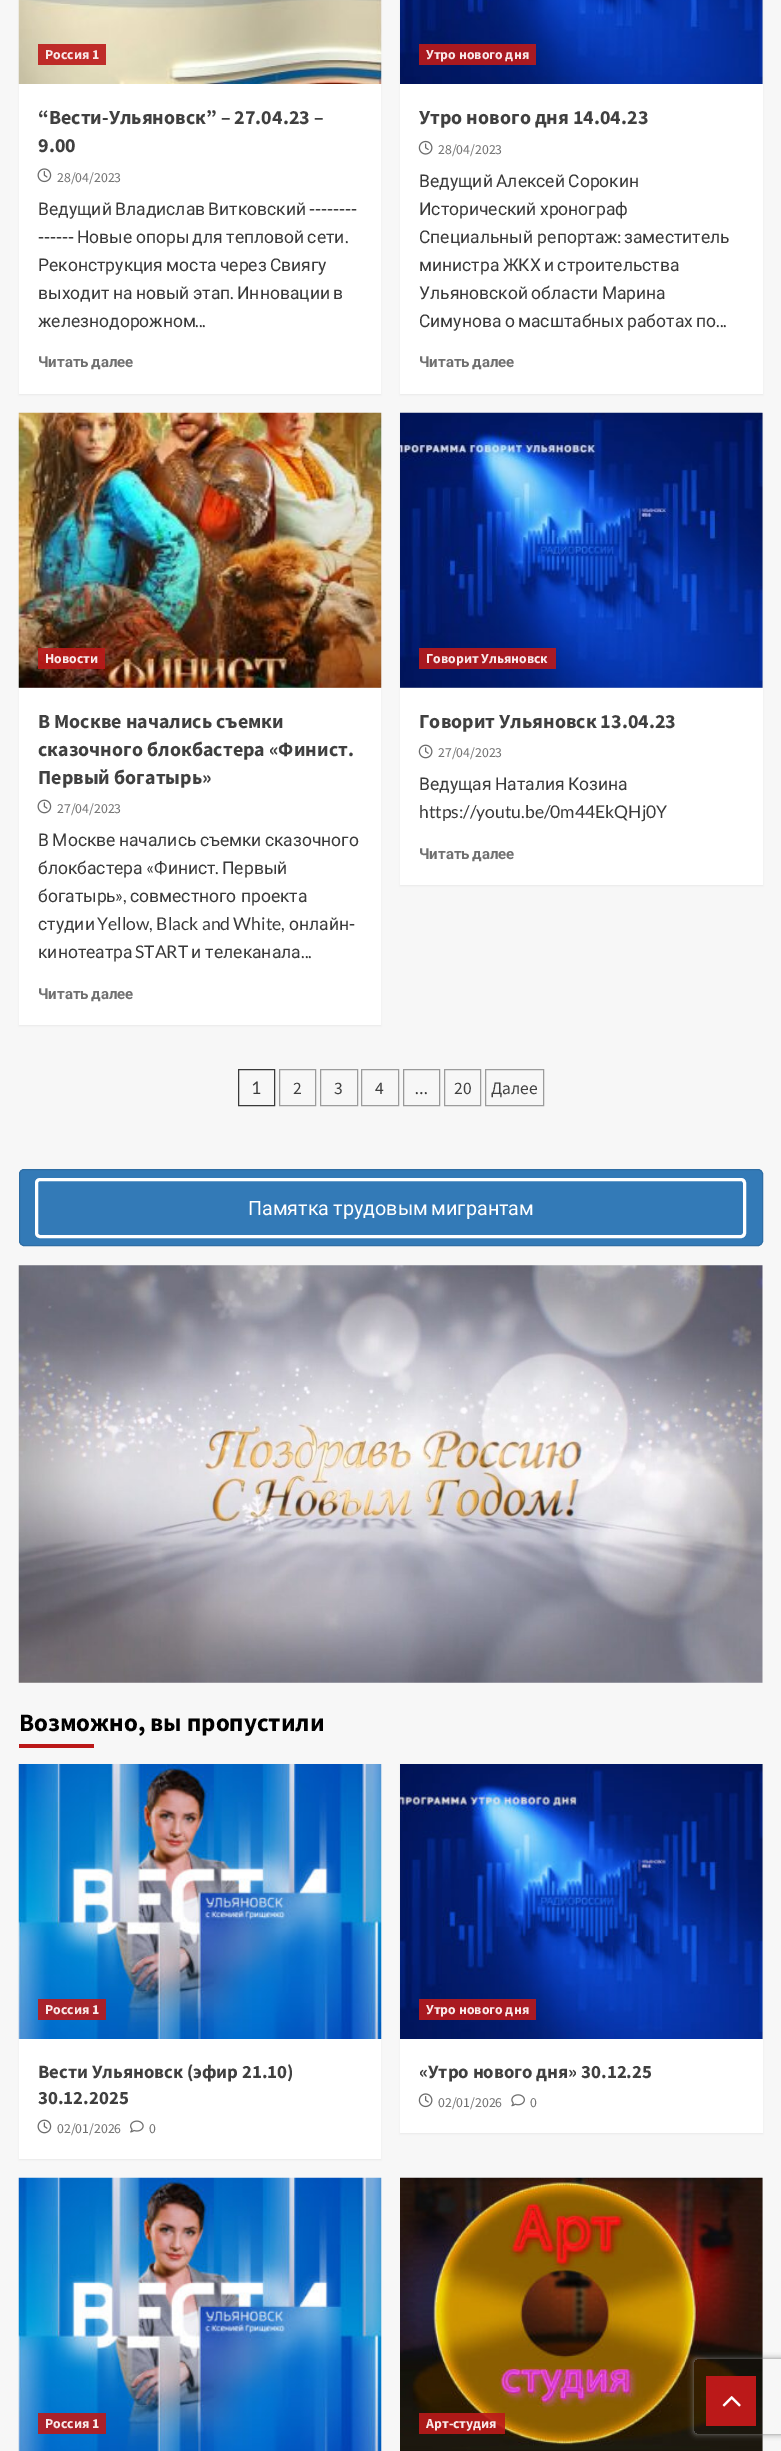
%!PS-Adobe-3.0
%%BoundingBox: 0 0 781 2451
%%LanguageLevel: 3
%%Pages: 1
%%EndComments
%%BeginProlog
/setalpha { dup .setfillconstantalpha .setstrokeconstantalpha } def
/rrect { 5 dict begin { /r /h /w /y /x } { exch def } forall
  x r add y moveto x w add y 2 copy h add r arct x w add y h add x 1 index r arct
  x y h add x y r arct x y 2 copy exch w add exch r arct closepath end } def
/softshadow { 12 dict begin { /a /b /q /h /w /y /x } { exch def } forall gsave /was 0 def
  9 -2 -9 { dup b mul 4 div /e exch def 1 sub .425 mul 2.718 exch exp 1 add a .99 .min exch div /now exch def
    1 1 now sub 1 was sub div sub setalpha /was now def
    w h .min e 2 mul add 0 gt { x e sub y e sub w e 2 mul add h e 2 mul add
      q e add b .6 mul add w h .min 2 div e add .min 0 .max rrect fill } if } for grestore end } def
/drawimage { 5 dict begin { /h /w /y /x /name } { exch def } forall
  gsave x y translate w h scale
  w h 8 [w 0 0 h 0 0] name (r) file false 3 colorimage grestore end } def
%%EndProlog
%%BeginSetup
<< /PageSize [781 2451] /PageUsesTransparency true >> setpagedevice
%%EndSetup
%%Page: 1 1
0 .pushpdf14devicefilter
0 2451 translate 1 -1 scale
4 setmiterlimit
0.969 setgray
0 0 781 2451 rectfill
0 setgray
19 -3 362 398 0 1 0.05 softshadow
1 setgray
19 84 362 310 rectfill
(images/1.raw) 18 0 364 84 drawimage
0.9 setalpha
0.733 0.098 0.098 setrgbcolor
38 44 68 21 rectfill
1 setalpha
(images/2.raw) 37 168 15 15 drawimage
0 setgray
400 -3 363 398 0 1 0.05 softshadow
1 setgray
400 84 363 310 rectfill
0.847 setgray
762 0 1 84 rectfill
(images/3.raw) 400 0 363 84 drawimage
0.9 setalpha
0.733 0.098 0.098 setrgbcolor
419 44 117 21 rectfill
1 setalpha
(images/4.raw) 418 140 15 15 drawimage
0 setgray
19 414 362 612 0 1 0.05 softshadow
1 setgray
19 687 362 338 rectfill
(images/5.raw) 18 412 364 276 drawimage
0.9 setalpha
0.733 0.098 0.098 setrgbcolor
38 648 67 21 rectfill
1 setalpha
(images/6.raw) 37 799 15 15 drawimage
0 setgray
400 414 363 472 0 1 0.05 softshadow
1 setgray
400 688 363 197 rectfill
0.847 setgray
400 413 363 275 rectfill
(images/7.raw) 400 412 363 276 drawimage
0.9 setalpha
0.733 0.098 0.098 setrgbcolor
419 648 137 21 rectfill
1 setalpha
(images/8.raw) 418 744 15 15 drawimage
0.227 setgray
238.5 1069.5 36 36 rectstroke
0.612 setgray
279.5 1069.5 36 36 rectstroke
320.5 1069.5 37 36 rectstroke
361.5 1069.5 37 36 rectstroke
0.6 setgray
403.5 1069.5 36 36 rectstroke
0.612 setgray
444.5 1069.5 36 36 rectstroke
485.5 1069.5 58 36 rectstroke
0.2 0.478 0.718 setrgbcolor
19.5 1169.5 743 76 4.5 rrect gsave fill grestore
0.18 0.427 0.643 setrgbcolor
stroke
1 setgray
3 setlinewidth
36.5 1179.5 708 57 3.5 rrect stroke
(images/9.raw) 18 1265 745 418 drawimage
0.733 0.098 0.098 setrgbcolor
19 1744 75 4 rectfill
0 setgray
19 1765 362 395 0 1 0.05 softshadow
1 setgray
19 2039 362 120 rectfill
(images/10.raw) 18 1764 364 275 drawimage
0.9 setalpha
0.733 0.098 0.098 setrgbcolor
38 1999 68 21 rectfill
1 setalpha
(images/6.raw) 37 2119 15 15 drawimage
(images/11.raw) 130 2120 14 13 drawimage
0 setgray
400 1765 363 369 0 1 0.05 softshadow
1 setgray
400 2039 363 94 rectfill
0.847 setgray
762 1764 1 275 rectfill
(images/12.raw) 400 1764 363 275 drawimage
0.9 setalpha
0.733 0.098 0.098 setrgbcolor
419 1999 117 21 rectfill
1 setalpha
(images/13.raw) 418 2093 15 15 drawimage
(images/14.raw) 511 2094 14 13 drawimage
(images/15.raw) 18 2177 364 274 drawimage
0.9 setalpha
38 2413 68 21 rectfill
1 setalpha
0.847 setgray
762 2178 1 273 rectfill
(images/16.raw) 400 2177 363 274 drawimage
0.9 setalpha
0.733 0.098 0.098 setrgbcolor
419 2413 86 21 rectfill
gsave
newpath 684 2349 moveto 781 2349 lineto 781 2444 lineto 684 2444 lineto closepath 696.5 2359 moveto 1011.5 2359 lineto 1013 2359 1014 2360 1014 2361.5 curveto 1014 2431.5 lineto 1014 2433 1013 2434 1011.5 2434 curveto 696.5 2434 lineto 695 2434 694 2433 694 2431.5 curveto 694 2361.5 lineto 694 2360 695 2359 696.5 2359 curveto closepath eoclip newpath
1 setalpha
0.502 setgray
694 2359 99 75 2.5 3 1 softshadow
grestore
1 setalpha
706 2376 50 50 rectfill
(images/17.raw) 722 2396 19 11 drawimage
/SourceSansPro-Bold [13.75 0 0 -13.75 0 0] selectfont
0.976 0.918 0.918 setrgbcolor
45 59 moveto (Россия 1) show
/SourceSansPro-Bold [20 0 0 -20 0 0] selectfont
0.251 setgray
38 124 moveto (“Вести-Ульяновск” – 27.04.23 –) show
38 152 moveto (9.00) show
/SourceSansPro-Regular [13.75 0 0 -13.75 0 0] selectfont
0.439 setgray
57 182 moveto (28/04/2023) show
/Roboto-Regular [17.5 0 0 -17.5 0 0] selectfont
0.227 setgray
38 215 moveto -1 0 32 (Ведущий Владислав Витковский) widthshow
/Lato-Regular [17.5 0 0 -17.5 0 0] selectfont
309 215 moveto (--------) show
38 243 moveto (------) show
/Roboto-Regular [17.5 0 0 -17.5 0 0] selectfont
77 243 moveto -1 0 32 (Новые опоры для тепловой сети) widthshow
/Lato-Regular [17.5 0 0 -17.5 0 0] selectfont
345 243 moveto (.) show
/Roboto-Regular [17.5 0 0 -17.5 0 0] selectfont
38 271 moveto -1 0 32 (Реконструкция моста через Свиягу) widthshow
38 299 moveto -1 0 32 (выходит на новый этап) widthshow
/Lato-Regular [17.5 0 0 -17.5 0 0] selectfont
230 299 moveto (.) show
/Roboto-Regular [17.5 0 0 -17.5 0 0] selectfont
237 299 moveto -1 0 32 (Инновации в) widthshow
38 327 moveto (железнодорожном) show
/Lato-Regular [17.5 0 0 -17.5 0 0] selectfont
195 327 moveto (...) show
/Roboto-Bold [15 0 0 -15 0 0] selectfont
0.439 setgray
38 367 moveto -1 0 32 (Читать далее) widthshow
/SourceSansPro-Bold [13.75 0 0 -13.75 0 0] selectfont
0.976 0.918 0.918 setrgbcolor
426 59 moveto (Утро нового дня) show
/SourceSansPro-Bold [20 0 0 -20 0 0] selectfont
0.251 setgray
419 124 moveto (Утро нового дня 14.04.23) show
/SourceSansPro-Regular [13.75 0 0 -13.75 0 0] selectfont
0.439 setgray
438 154 moveto (28/04/2023) show
/Roboto-Regular [17.5 0 0 -17.5 0 0] selectfont
0.227 setgray
419 187 moveto -1 0 32 (Ведущий Алексей Сорокин) widthshow
419 215 moveto -1 0 32 (Исторический хронограф) widthshow
419 243 moveto (Специальный репортаж) show
/Lato-Regular [17.5 0 0 -17.5 0 0] selectfont
617 243 moveto (:) show
/Roboto-Regular [17.5 0 0 -17.5 0 0] selectfont
624 243 moveto (заместитель) show
419 271 moveto -1 0 32 (министра ЖКХ и строительства) widthshow
419 299 moveto -1 0 32 (Ульяновской области Марина) widthshow
419 327 moveto -1 0 32 (Симунова о масштабных работах по) widthshow
/Lato-Regular [17.5 0 0 -17.5 0 0] selectfont
716 327 moveto (...) show
/Roboto-Bold [15 0 0 -15 0 0] selectfont
0.439 setgray
419 367 moveto -1 0 32 (Читать далее) widthshow
/SourceSansPro-Bold [13.75 0 0 -13.75 0 0] selectfont
0.976 0.918 0.918 setrgbcolor
45 663 moveto (Новости) show
/SourceSansPro-Bold [20 0 0 -20 0 0] selectfont
0.251 setgray
38 728 moveto (В Москве начались съемки) show
38 756 moveto (сказочного блокбастера «Финист.) show
38 784 moveto (Первый богатырь») show
/SourceSansPro-Regular [13.75 0 0 -13.75 0 0] selectfont
0.439 setgray
57 813 moveto (27/04/2023) show
/Roboto-Regular [17.5 0 0 -17.5 0 0] selectfont
0.227 setgray
38 846 moveto -1 0 32 (В Москве начались съемки сказочного) widthshow
38 874 moveto (блокбастера) show
/Lato-Regular [17.5 0 0 -17.5 0 0] selectfont
146 874 moveto («) show
/Roboto-Regular [17.5 0 0 -17.5 0 0] selectfont
154 874 moveto (Финист) show
/Lato-Regular [17.5 0 0 -17.5 0 0] selectfont
215 874 moveto (.) show
/Roboto-Regular [17.5 0 0 -17.5 0 0] selectfont
222 874 moveto (Первый) show
38 902 moveto (богатырь) show
/Lato-Regular [17.5 0 0 -17.5 0 0] selectfont
115 902 moveto (»,) show
/Roboto-Regular [17.5 0 0 -17.5 0 0] selectfont
130 902 moveto (совместного проекта) show
38 930 moveto (студии) show
/Lato-Regular [17.5 0 0 -17.5 0 0] selectfont
97 930 moveto (Yellow, Black and White,) show
/Roboto-Regular [17.5 0 0 -17.5 0 0] selectfont
289 930 moveto (онлайн) show
/Lato-Regular [17.5 0 0 -17.5 0 0] selectfont
349 930 moveto (-) show
/Roboto-Regular [17.5 0 0 -17.5 0 0] selectfont
38 958 moveto (кинотеатра) show
/Lato-Regular [17.5 0 0 -17.5 0 0] selectfont
135 958 moveto (START) show
/Roboto-Regular [17.5 0 0 -17.5 0 0] selectfont
191 958 moveto (и телеканала) show
/Lato-Regular [17.5 0 0 -17.5 0 0] selectfont
301 958 moveto (...) show
/Roboto-Bold [15 0 0 -15 0 0] selectfont
0.439 setgray
38 999 moveto -1 0 32 (Читать далее) widthshow
/SourceSansPro-Bold [13.75 0 0 -13.75 0 0] selectfont
0.976 0.918 0.918 setrgbcolor
426 663 moveto (Говорит Ульяновск) show
/SourceSansPro-Bold [20 0 0 -20 0 0] selectfont
0.251 setgray
419 728 moveto (Говорит Ульяновск 13.04.23) show
/SourceSansPro-Regular [13.75 0 0 -13.75 0 0] selectfont
0.439 setgray
438 757 moveto (27/04/2023) show
/Roboto-Regular [17.5 0 0 -17.5 0 0] selectfont
0.227 setgray
419 790 moveto -1 0 32 (Ведущая Наталия Козина) widthshow
/Lato-Regular [17.5 0 0 -17.5 0 0] selectfont
419 818 moveto (https://youtu.be/0m44EkQHj0Y) show
/Roboto-Bold [15 0 0 -15 0 0] selectfont
0.439 setgray
419 859 moveto -1 0 32 (Читать далее) widthshow
/Lato-Regular [17.5 0 0 -17.5 0 0] selectfont
0.227 setgray
251 1094 moveto (1) show
/SourceSansPro-Regular [17.5 0 0 -17.5 0 0] selectfont
0.251 setgray
293 1094 moveto (2) show
334 1094 moveto (3) show
375 1094 moveto (4) show
/Lato-Regular [17.5 0 0 -17.5 0 0] selectfont
0.227 setgray
415 1094 moveto (…) show
/SourceSansPro-Regular [17.5 0 0 -17.5 0 0] selectfont
0.251 setgray
454 1094 moveto (20) show
491 1094 moveto (Далее) show
/Roboto-Regular [19.75 0 0 -19.75 0 0] selectfont
1 setgray
248 1215 moveto -1 0 32 (Памятка трудовым мигрантам) widthshow
/SourceSansPro-Bold [25 0 0 -25 0 0] selectfont
0 setgray
19 1731 moveto (Возможно, вы пропустили) show
/SourceSansPro-Bold [13.75 0 0 -13.75 0 0] selectfont
0.976 0.918 0.918 setrgbcolor
45 2014 moveto (Россия 1) show
/SourceSansPro-Bold [18.75 0 0 -18.75 0 0] selectfont
0.251 setgray
38 2078 moveto (Вести Ульяновск \(эфир 21.10\)) show
38 2104 moveto (30.12.2025) show
/SourceSansPro-Regular [13.75 0 0 -13.75 0 0] selectfont
0.439 setgray
57 2133 moveto (02/01/2026) show
149 2133 moveto (0) show
/SourceSansPro-Bold [13.75 0 0 -13.75 0 0] selectfont
0.976 0.918 0.918 setrgbcolor
426 2014 moveto (Утро нового дня) show
/SourceSansPro-Bold [18.75 0 0 -18.75 0 0] selectfont
0.251 setgray
419 2078 moveto («Утро нового дня» 30.12.25) show
/SourceSansPro-Regular [13.75 0 0 -13.75 0 0] selectfont
0.439 setgray
438 2107 moveto (02/01/2026) show
530 2107 moveto (0) show
/SourceSansPro-Bold [13.75 0 0 -13.75 0 0] selectfont
0.976 0.918 0.918 setrgbcolor
45 2428 moveto (Россия 1) show
426 2428 moveto (Арт-студия) show
.poppdf14devicefilter showpage
%%EOF
